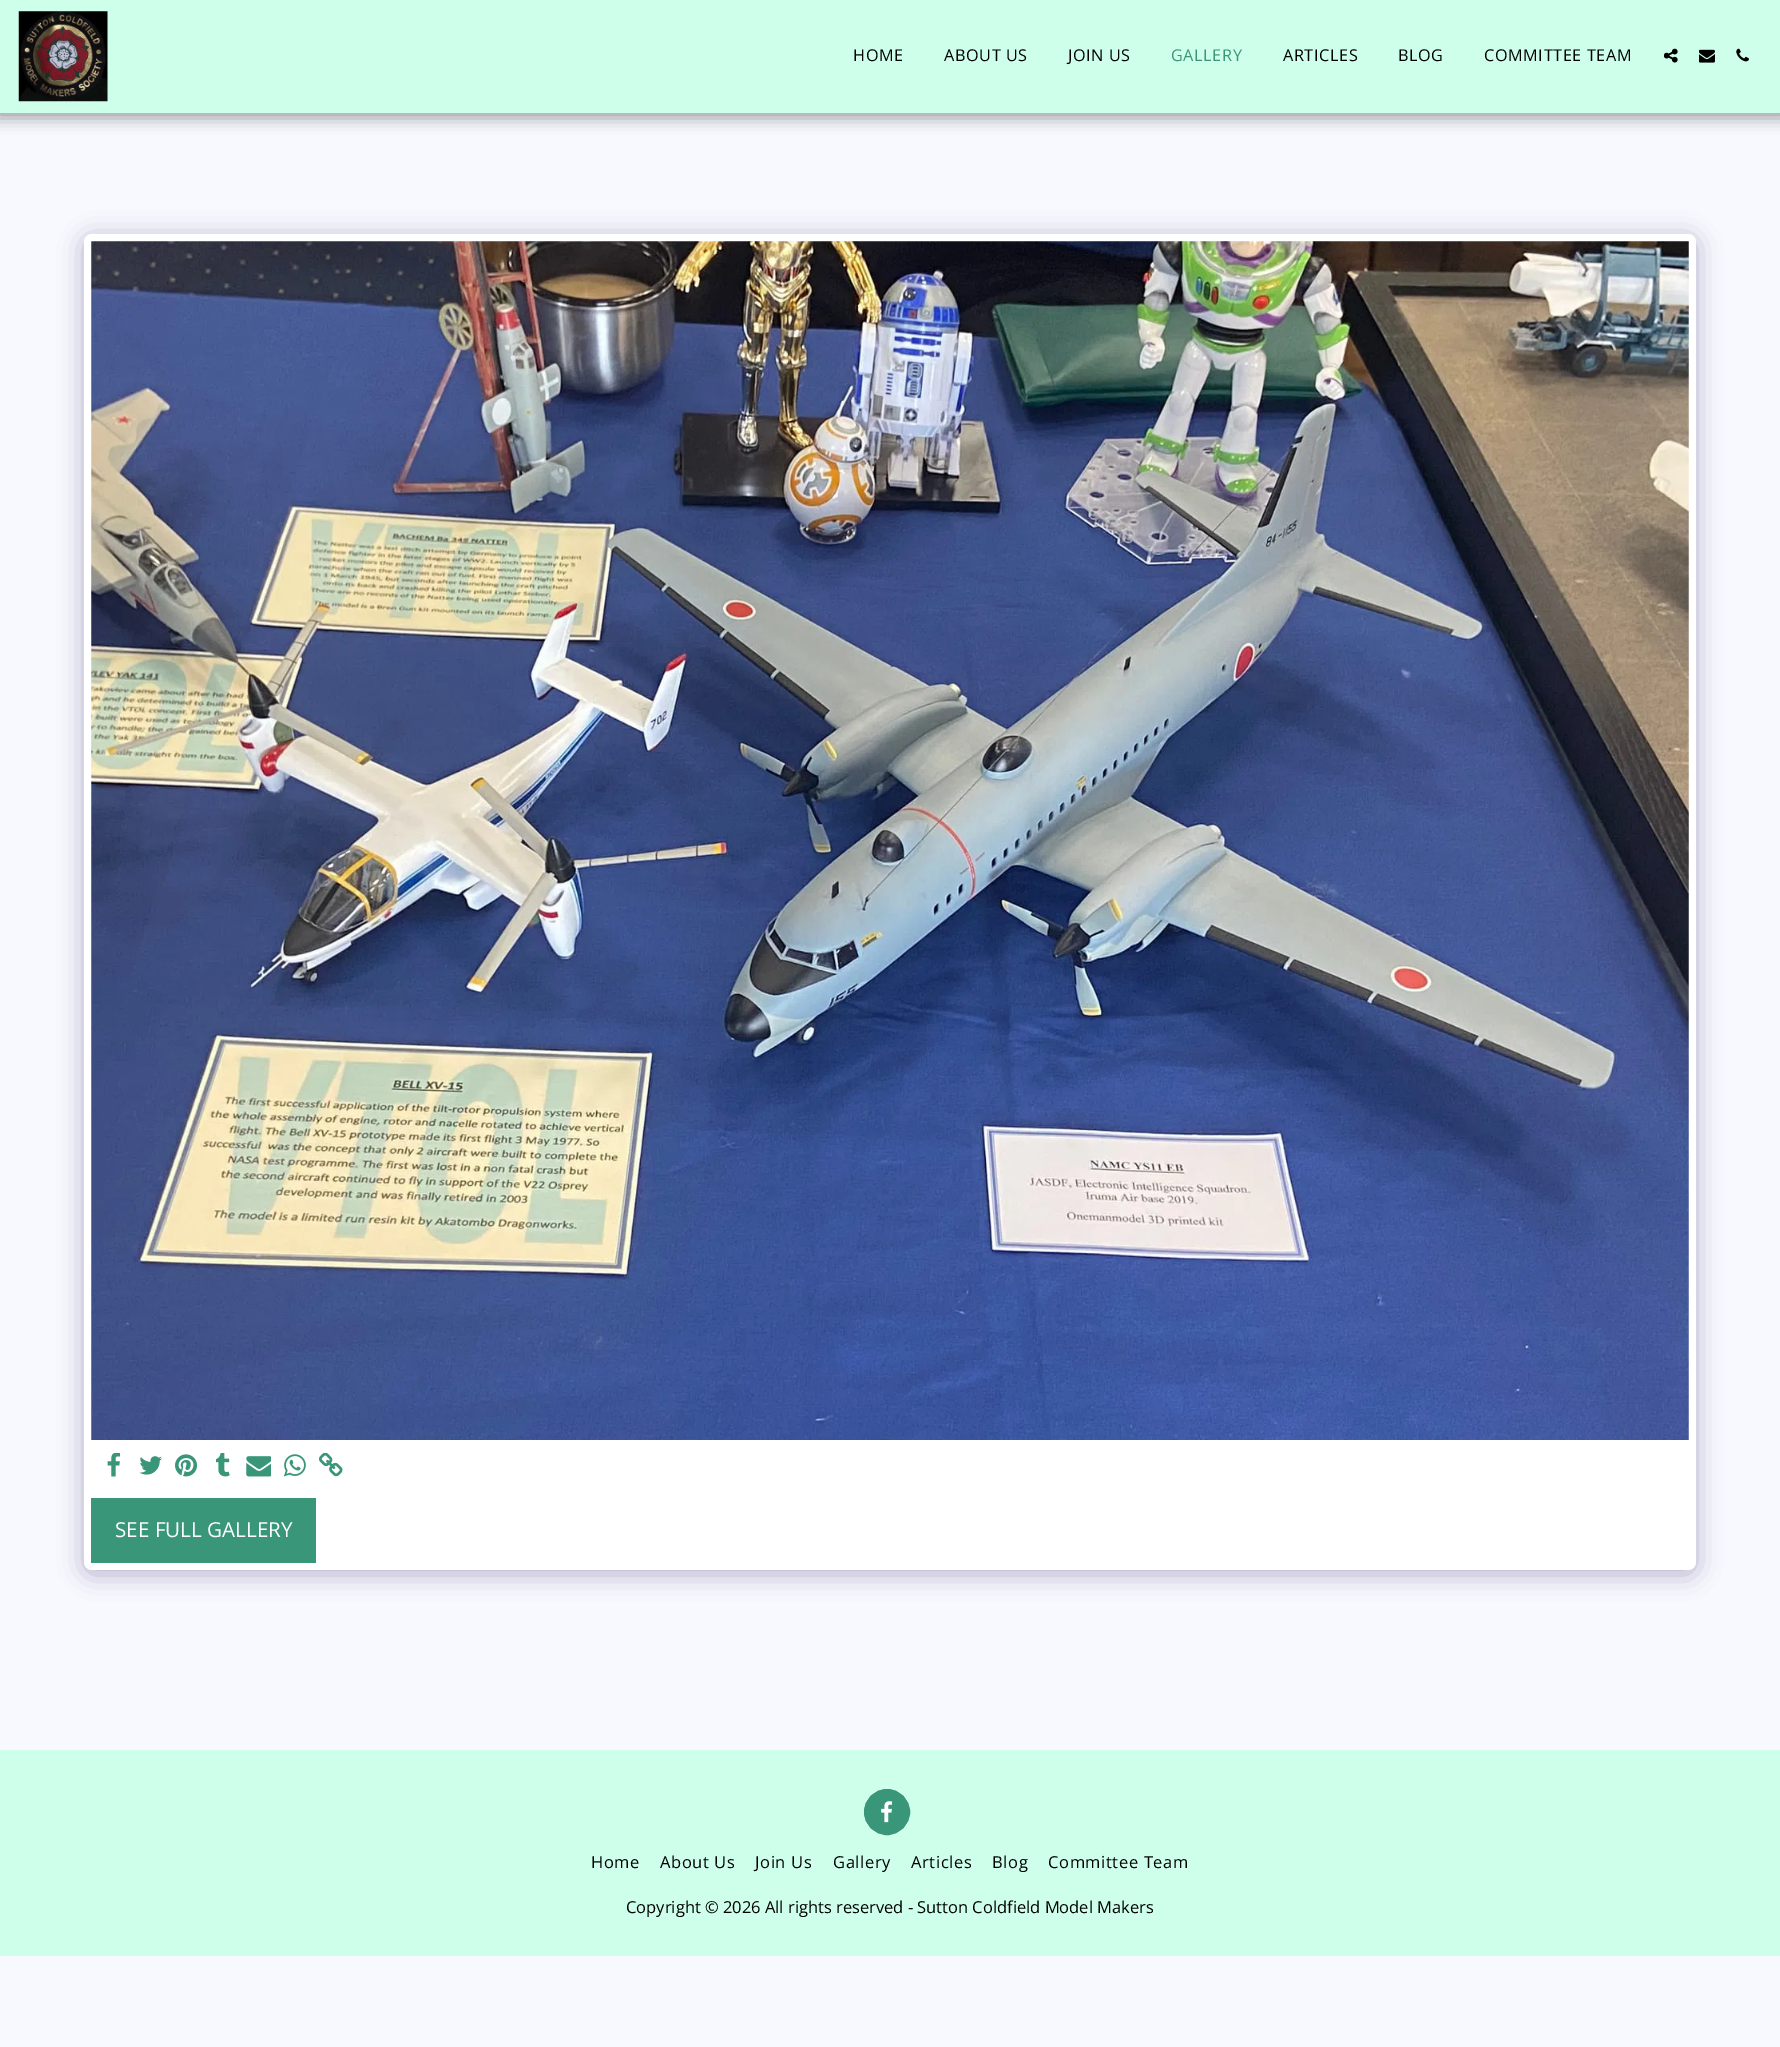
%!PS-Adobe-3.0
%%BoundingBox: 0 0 1780 2047
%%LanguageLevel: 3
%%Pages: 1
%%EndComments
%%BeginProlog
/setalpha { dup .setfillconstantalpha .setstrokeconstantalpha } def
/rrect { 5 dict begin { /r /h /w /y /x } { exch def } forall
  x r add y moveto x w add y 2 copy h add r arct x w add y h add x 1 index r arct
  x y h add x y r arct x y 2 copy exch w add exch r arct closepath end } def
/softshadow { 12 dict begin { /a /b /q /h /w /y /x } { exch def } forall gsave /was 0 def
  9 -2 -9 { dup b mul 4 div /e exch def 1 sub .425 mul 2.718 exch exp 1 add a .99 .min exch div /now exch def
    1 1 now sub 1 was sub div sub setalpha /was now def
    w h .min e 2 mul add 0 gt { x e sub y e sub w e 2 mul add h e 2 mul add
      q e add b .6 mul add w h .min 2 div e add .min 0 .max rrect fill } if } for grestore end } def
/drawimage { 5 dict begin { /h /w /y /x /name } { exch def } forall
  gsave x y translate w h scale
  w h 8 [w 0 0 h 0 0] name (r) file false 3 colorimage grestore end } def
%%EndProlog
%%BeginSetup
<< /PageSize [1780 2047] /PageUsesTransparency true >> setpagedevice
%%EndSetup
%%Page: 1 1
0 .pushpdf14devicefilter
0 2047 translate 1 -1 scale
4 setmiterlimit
0.973 0.973 1 setrgbcolor
0 0 1780 2047 rectfill
0 setgray
-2 0 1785 118 0 7.5 0.35 softshadow
0.804 1 0.922 setrgbcolor
0 0 1780 113 rectfill
(images/1.raw) 18 11 90 91 drawimage
(images/2.raw) 1664 48 14 15 drawimage
(images/3.raw) 1699 49 16 14 drawimage
(images/4.raw) 1736 48 13 14 drawimage
0.302 0.247 0.478 setrgbcolor
84 238 1612 1336 8 12.5 0.4 softshadow
1 setgray
84 234 1612 1336 8 rrect fill
(images/5.raw) 91 241 1598 1199 drawimage
(images/6.raw) 107 1453 14 24 drawimage
(images/7.raw) 139 1456 23 19 drawimage
(images/8.raw) 175 1454 23 23 drawimage
(images/9.raw) 215 1453 15 24 drawimage
(images/10.raw) 246 1456 25 21 drawimage
(images/11.raw) 284 1454 22 23 drawimage
(images/12.raw) 319 1453 24 24 drawimage
0.227 0.588 0.475 setrgbcolor
91 1498 225 65 rectfill
0.804 1 0.922 setrgbcolor
0 1750 1780 206 rectfill
0.227 0.588 0.475 setrgbcolor
newpath 887 1812 22.5 0 360 arc closepath gsave fill grestore
stroke
(images/13.raw) 881 1801 12 22 drawimage
/OpenSans-Regular [16.25 0 0 -16.25 0 0] selectfont
0 setgray
853 61 moveto 0.6 0 (HOME) ashow
944 61 moveto 0.6 0 (ABOUT US) ashow
1068 61 moveto 0.6 0 (JOIN US) ashow
0.227 0.588 0.475 setrgbcolor
1171 61 moveto 0.6 0 (GALLERY) ashow
0 setgray
1283 61 moveto 0.6 0 (ARTICLES) ashow
1398 61 moveto 0.6 0 (BLOG) ashow
1484 61 moveto 0.6 0 (COMMITTEE TEAM) ashow
/OpenSans-Regular [20.6 0 0 -20.6 0 0] selectfont
1 setgray
115 1537 moveto (SEE FULL GALLERY) show
/OpenSans-Regular [16.5 0 0 -16.5 0 0] selectfont
0 setgray
591 1868 moveto 0.6 0 (Home) ashow
660 1868 moveto 0.6 0 (About Us) ashow
755 1868 moveto 0.6 0 (Join Us) ashow
833 1868 moveto 0.6 0 (Gallery) ashow
911 1868 moveto 0.6 0 (Articles) ashow
992 1868 moveto 0.6 0 (Blog) ashow
1048 1868 moveto 0.6 0 (Committee Team) ashow
626 1913 moveto (Copyright © 2026 All rights reserved - Sutton Coldfield Model Makers) show
.poppdf14devicefilter showpage
%%EOF
